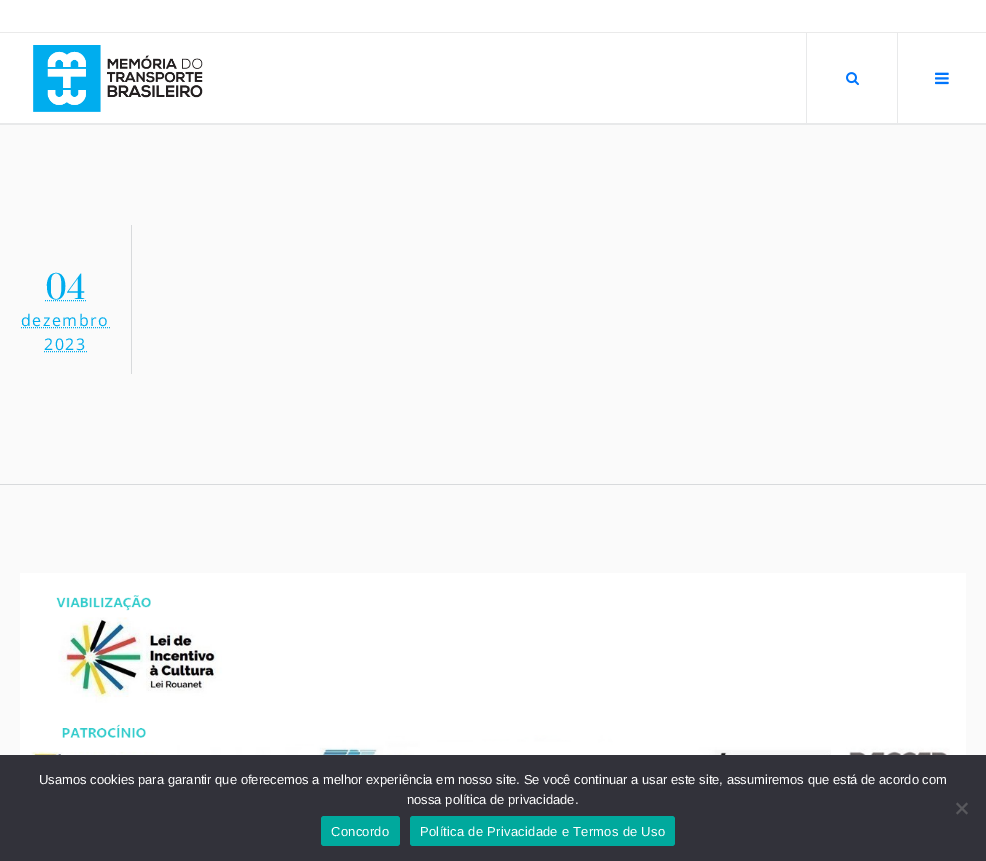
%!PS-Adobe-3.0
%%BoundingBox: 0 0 986 861
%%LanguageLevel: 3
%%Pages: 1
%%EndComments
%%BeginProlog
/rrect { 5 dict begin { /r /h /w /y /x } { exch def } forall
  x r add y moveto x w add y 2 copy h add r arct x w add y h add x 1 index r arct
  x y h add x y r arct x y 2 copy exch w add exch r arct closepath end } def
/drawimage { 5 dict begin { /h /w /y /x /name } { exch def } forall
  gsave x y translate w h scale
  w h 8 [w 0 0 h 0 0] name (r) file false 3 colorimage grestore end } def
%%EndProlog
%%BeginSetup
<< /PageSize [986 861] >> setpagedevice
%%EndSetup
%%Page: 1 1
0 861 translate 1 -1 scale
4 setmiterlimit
0.98 setgray
0 0 986 861 rectfill
1 setgray
0 0 986 32 rectfill
0.918 setgray
0 32 986 1 rectfill
1 setgray
0 33 986 90 rectfill
0.91 0.914 0.918 setrgbcolor
0 123 986 2 rectfill
(images/1.raw) 33 45 170 67 drawimage
806 33 1 90 rectfill
(images/2.raw) 846 72 13 14 drawimage
897 33 1 90 rectfill
(images/3.raw) 935 72 14 13 drawimage
0.847 0.855 0.863 setrgbcolor
131 225 1 149 rectfill
0 0.678 0.933 setrgbcolor
[1 1] 0 setdash
newpath 45 300.5 moveto 86 300.5 lineto stroke
newpath 21 327.5 moveto 110 327.5 lineto stroke
newpath 44 351.5 moveto 87 351.5 lineto stroke
0.847 0.855 0.863 setrgbcolor
0 484 986 1 rectfill
(images/4.raw) 20 573 946 182 drawimage
0.196 0.196 0.227 setrgbcolor
0 755 986 106 rectfill
0.349 0.349 0.365 setrgbcolor
newpath 966.5 802.5 moveto 968 804 lineto 957.5 814.5 lineto 956 813 lineto closepath fill
newpath 956 804 moveto 957.5 802.5 lineto 968 813 lineto 966.5 814.5 lineto closepath fill
0 0.663 0.616 setrgbcolor
321 816 79 30 3 rrect fill
410 816 265 30 3 rrect fill
/Prata-Regular [32 0 0 -32 0 0] selectfont
0 0.678 0.933 setrgbcolor
45 299 moveto (04) show
/OpenSans-Regular [16 0 0 -16 0 0] selectfont
21 326 moveto 1.5 0 (dezembro) ashow
44 350 moveto 1.5 0 (2023) ashow
/LiberationSans-Regular [13 0 0 -13 0 0] selectfont
1 setgray
39 784 moveto (Usamos cookies para garantir que oferecemos a melhor experiência em nosso site. Se você continuar a usar este site, assumiremos que está de acordo com) show
407 804 moveto (nossa política de privacidade.) show
331 836 moveto 0.25 0 (Concordo) ashow
420 836 moveto 0.25 0 (Política de Privacidade e Termos de Uso) ashow
showpage
%%EOF
